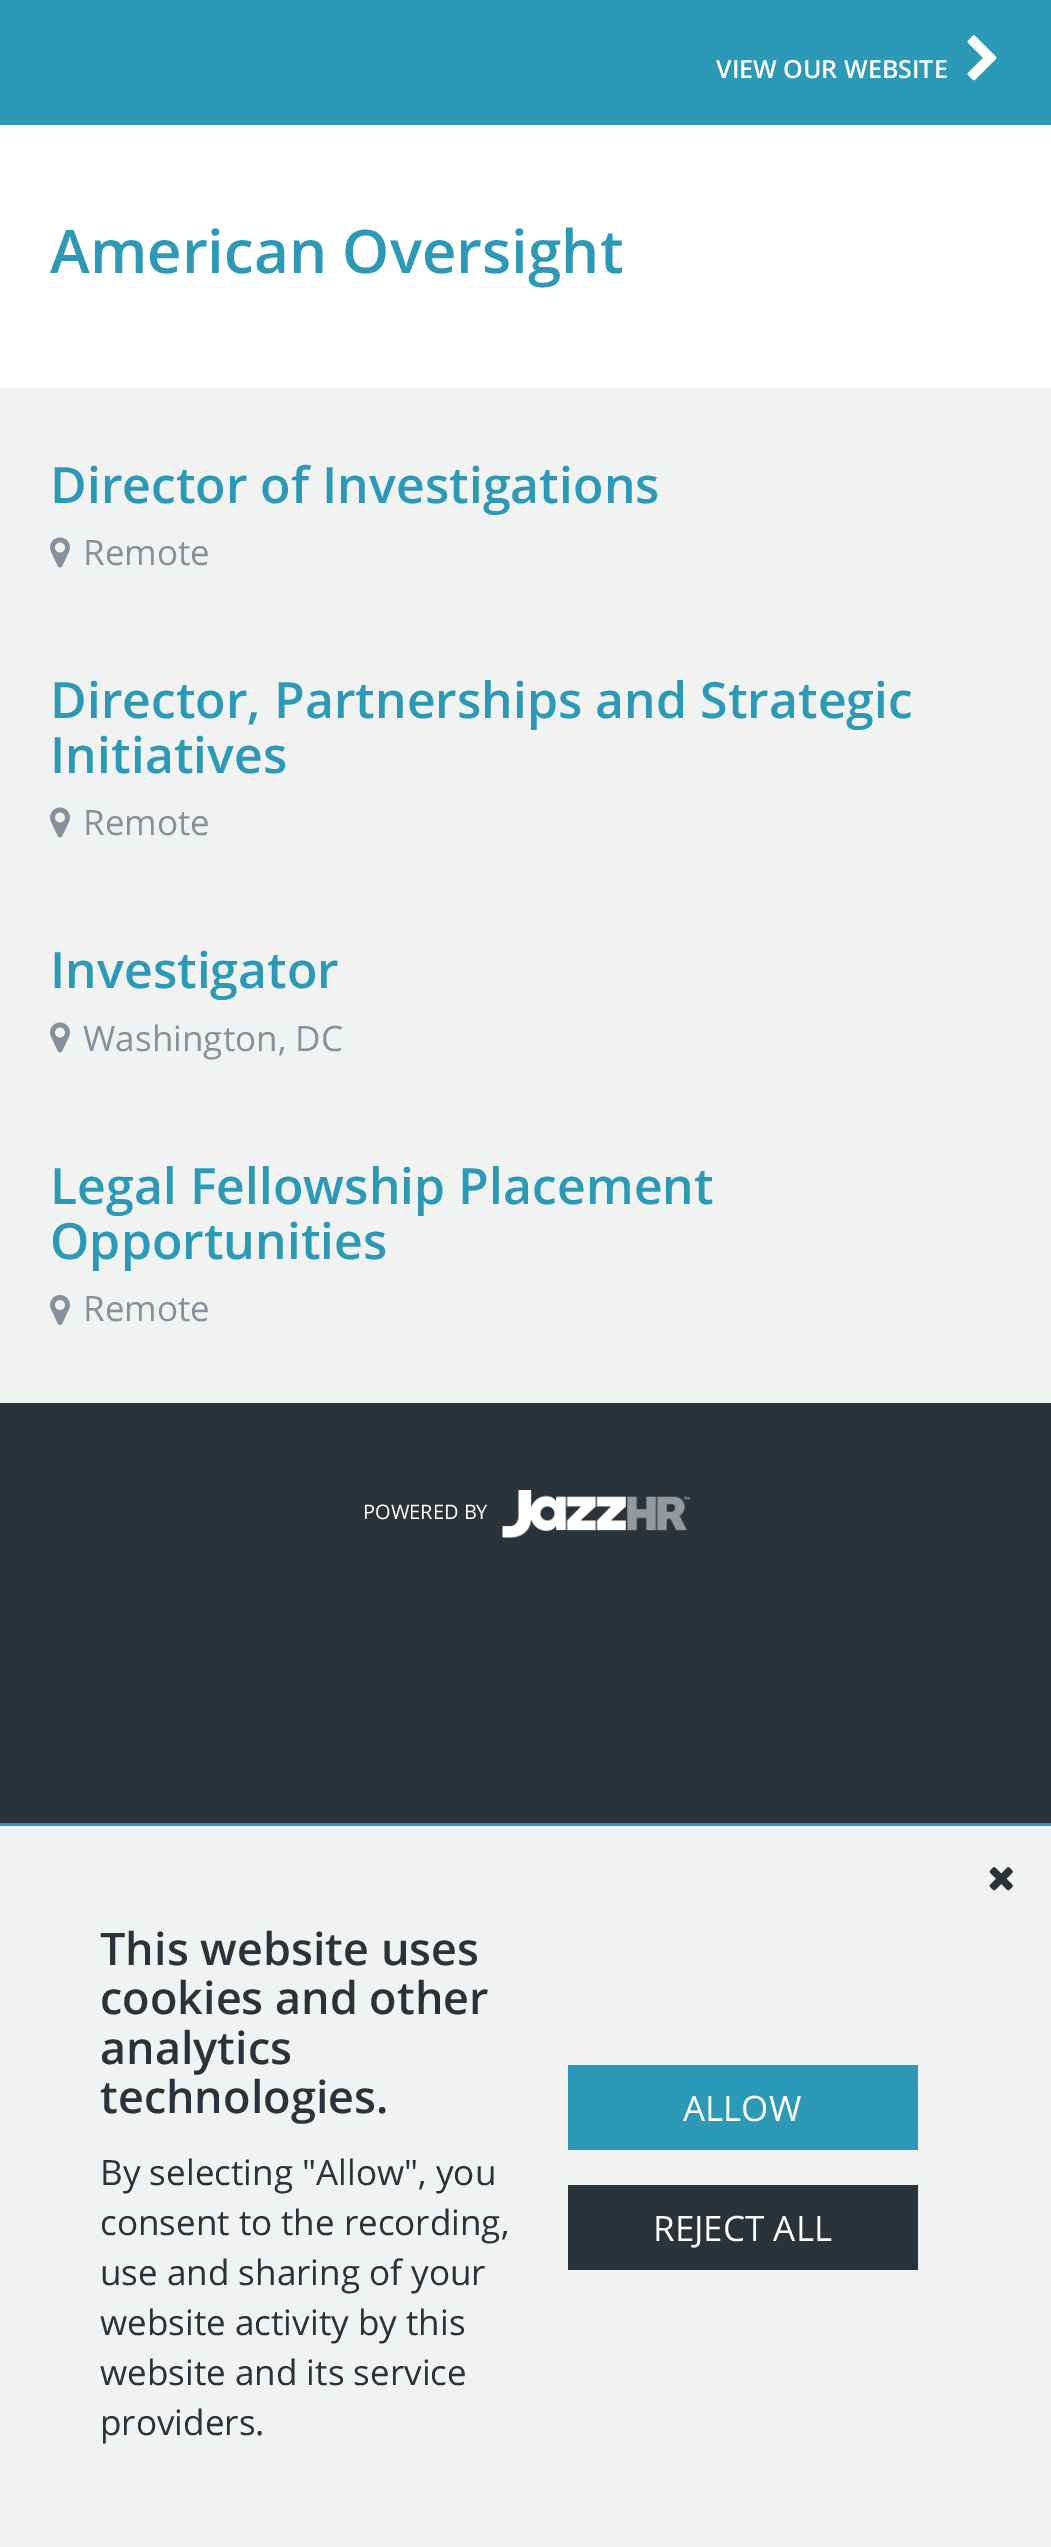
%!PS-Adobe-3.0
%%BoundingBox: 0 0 1051 2547
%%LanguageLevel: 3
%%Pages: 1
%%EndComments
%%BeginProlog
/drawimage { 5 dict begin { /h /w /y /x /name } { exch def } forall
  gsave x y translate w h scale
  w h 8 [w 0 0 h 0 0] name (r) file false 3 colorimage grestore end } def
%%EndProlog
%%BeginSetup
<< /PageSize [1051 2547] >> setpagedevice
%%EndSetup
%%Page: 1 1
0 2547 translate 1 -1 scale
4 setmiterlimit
0.169 0.2 0.227 setrgbcolor
0 0 1051 2547 rectfill
0.173 0.604 0.718 setrgbcolor
0 0 1051 125 rectfill
(images/1.raw) 967 35 30 46 drawimage
1 setgray
0 125 1051 263 rectfill
0.945 0.953 0.953 setrgbcolor
0 388 1051 1015 rectfill
(images/2.raw) 50 537 20 31 drawimage
(images/2.raw) 50 807 20 31 drawimage
(images/2.raw) 50 1022 20 31 drawimage
(images/3.raw) 50 1295 20 30 drawimage
(images/4.raw) 502 1490 188 48 drawimage
0 1826 1051 721 rectfill
0.173 0.604 0.718 setrgbcolor
0 1823 1051 3 rectfill
(images/5.raw) 989 1867 24 24 drawimage
568 2065 350 85 rectfill
0.169 0.2 0.227 setrgbcolor
568 2185 350 85 rectfill
/OpenSans-SemiBold [25 0 0 -25 0 0] selectfont
1 setgray
716 78 moveto (VIEW OUR WEBSITE) show
/OpenSans-SemiBold [60 0 0 -60 0 0] selectfont
0.173 0.604 0.718 setrgbcolor
50 273 moveto (American Oversight) show
/OpenSans-SemiBold [50 0 0 -50 0 0] selectfont
50 503 moveto (Director of Investigations) show
/OpenSans-Regular [35 0 0 -35 0 0] selectfont
0.529 0.569 0.608 setrgbcolor
83 565 moveto (Remote) show
/OpenSans-SemiBold [50 0 0 -50 0 0] selectfont
0.173 0.604 0.718 setrgbcolor
50 718 moveto (Director, Partnerships and Strategic) show
50 773 moveto (Initiatives) show
/OpenSans-Regular [35 0 0 -35 0 0] selectfont
0.529 0.569 0.608 setrgbcolor
83 835 moveto (Remote) show
/OpenSans-SemiBold [50 0 0 -50 0 0] selectfont
0.173 0.604 0.718 setrgbcolor
50 988 moveto (Investigator) show
/OpenSans-Regular [35 0 0 -35 0 0] selectfont
0.529 0.569 0.608 setrgbcolor
83 1051 moveto (Washington, DC) show
/OpenSans-SemiBold [50 0 0 -50 0 0] selectfont
0.173 0.604 0.718 setrgbcolor
50 1204 moveto (Legal Fellowship Placement) show
50 1259 moveto (Opportunities) show
/OpenSans-Regular [35 0 0 -35 0 0] selectfont
0.529 0.569 0.608 setrgbcolor
83 1321 moveto (Remote) show
/OpenSans-Regular [20 0 0 -20 0 0] selectfont
1 setgray
363 1519 moveto (POWERED BY) show
/OpenSans-SemiBold [45 0 0 -45 0 0] selectfont
0.169 0.2 0.227 setrgbcolor
100 1965 moveto (This website uses) show
100 2014 moveto (cookies and other) show
100 2064 moveto (analytics) show
100 2113 moveto (technologies.) show
/OpenSans-Regular [35 0 0 -35 0 0] selectfont
100 2185 moveto (By selecting "Allow", you) show
100 2235 moveto (consent to the recording,) show
100 2285 moveto (use and sharing of your) show
100 2335 moveto (website activity by this) show
100 2385 moveto (website and its service) show
100 2435 moveto (providers.) show
1 setgray
683 2121 moveto (ALLOW) show
653 2241 moveto (REJECT ALL) show
showpage
%%EOF
